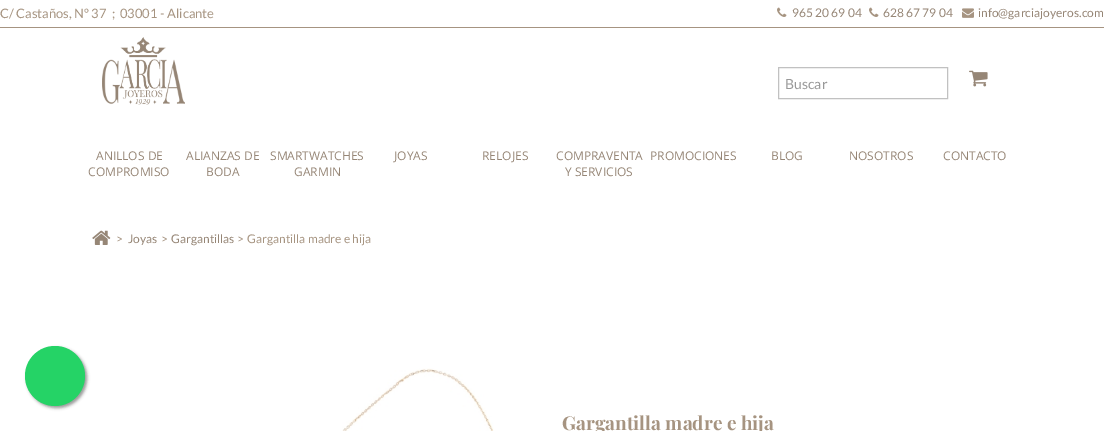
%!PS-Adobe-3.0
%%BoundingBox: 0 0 1104 431
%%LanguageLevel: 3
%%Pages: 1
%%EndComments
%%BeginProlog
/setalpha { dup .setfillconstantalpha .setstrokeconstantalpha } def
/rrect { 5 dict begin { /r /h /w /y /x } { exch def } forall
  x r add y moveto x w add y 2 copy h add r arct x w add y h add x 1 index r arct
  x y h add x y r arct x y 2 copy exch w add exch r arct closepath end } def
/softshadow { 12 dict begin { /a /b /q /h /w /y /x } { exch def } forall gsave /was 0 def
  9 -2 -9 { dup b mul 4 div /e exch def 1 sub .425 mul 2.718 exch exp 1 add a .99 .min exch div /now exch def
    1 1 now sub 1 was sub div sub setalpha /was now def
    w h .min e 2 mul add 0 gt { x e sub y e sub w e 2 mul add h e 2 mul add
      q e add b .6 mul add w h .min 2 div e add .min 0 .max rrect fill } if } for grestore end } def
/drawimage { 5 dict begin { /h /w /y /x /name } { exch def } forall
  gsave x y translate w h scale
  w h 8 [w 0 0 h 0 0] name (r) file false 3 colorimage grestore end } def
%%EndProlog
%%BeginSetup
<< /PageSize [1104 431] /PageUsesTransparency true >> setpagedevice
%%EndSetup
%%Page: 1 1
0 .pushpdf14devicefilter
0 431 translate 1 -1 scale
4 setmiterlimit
1 setgray
0 0 1104 431 rectfill
0.651 0.58 0.506 setrgbcolor
0 27 1104 1 rectfill
(images/1.raw) 777 7 10 10 drawimage
(images/1.raw) 869 7 10 10 drawimage
(images/2.raw) 962 8 12 10 drawimage
(images/3.raw) 102 37 83 68 drawimage
0.757 setgray
778.5 67.5 169 31 rectstroke
(images/4.raw) 969 70 19 17 drawimage
0.6 setgray
27 348 60 60 30 1.5 1 softshadow
0.145 0.827 0.4 setrgbcolor
newpath 55 376 30 0 360 arc closepath fill
(images/5.raw) 92 230 19 15 drawimage
(images/6.raw) 342 368 152 63 drawimage
/Lato-Regular [13 0 0 -13 0 0] selectfont
0.651 0.58 0.506 setrgbcolor
0 18 moveto (C/ Castaños, Nº 37  ;  03001 - Alicante) show
/Lato-Regular [12 0 0 -12 0 0] selectfont
0.588 0.525 0.463 setrgbcolor
792 17 moveto (965 20 69 04) show
883 17 moveto (628 67 79 04) show
978 17 moveto (info@garciajoyeros.com) show
/Lato-Regular [14 0 0 -14 0 0] selectfont
0.6 setgray
785 89 moveto (Buscar) show
/OpenSans-Regular [12 0 0 -12 0 0] selectfont
0.588 0.525 0.463 setrgbcolor
96 160 moveto (ANILLOS DE) show
88 176 moveto (COMPROMISO) show
186 160 moveto (ALIANZAS DE) show
206 176 moveto (BODA) show
270 160 moveto (SMARTWATCHES) show
294 176 moveto (GARMIN) show
394 160 moveto (JOYAS) show
482 160 moveto (RELOJES) show
556 160 moveto (COMPRAVENTA) show
565 176 moveto (Y SERVICIOS) show
650 160 moveto (PROMOCIONES) show
771 160 moveto (BLOG) show
849 160 moveto (NOSOTROS) show
943 160 moveto (CONTACTO) show
/Lato-Regular [12 0 0 -12 0 0] selectfont
0.651 0.58 0.506 setrgbcolor
116 243 moveto (>) show
0.588 0.525 0.463 setrgbcolor
128 243 moveto (Joyas) show
0.651 0.58 0.506 setrgbcolor
161 243 moveto (>) show
0.588 0.525 0.463 setrgbcolor
171 243 moveto (Gargantillas) show
0.651 0.58 0.506 setrgbcolor
237 243 moveto (>) show
247 243 moveto (Gargantilla madre e hija) show
/PlayfairDisplay-Bold [19 0 0 -19 0 0] selectfont
562 430 moveto (Gargantilla madre e hija) show
.poppdf14devicefilter showpage
%%EOF
